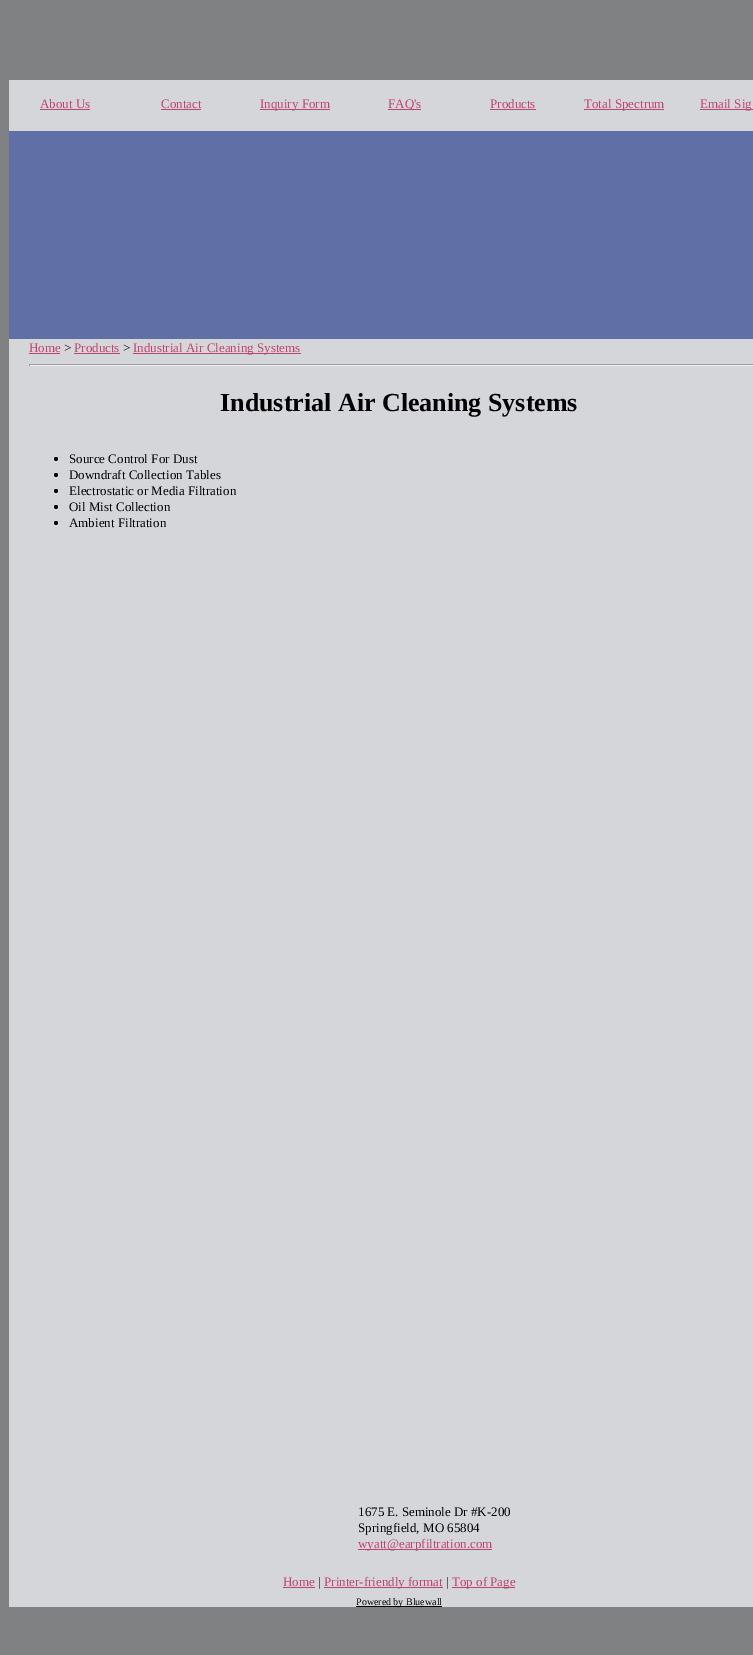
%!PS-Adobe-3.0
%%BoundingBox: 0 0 753 1655
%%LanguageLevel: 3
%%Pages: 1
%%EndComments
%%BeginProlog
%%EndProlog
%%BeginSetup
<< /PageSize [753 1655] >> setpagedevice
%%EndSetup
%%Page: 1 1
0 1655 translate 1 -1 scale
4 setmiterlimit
0.502 0.506 0.514 setrgbcolor
0 0 753 1655 rectfill
0.835 0.839 0.855 setrgbcolor
9 80 744 1527 rectfill
0.749 0.271 0.424 setrgbcolor
40 109 50 1 rectfill
161 109 40 1 rectfill
260 109 70 1 rectfill
388 109 33 1 rectfill
490 109 46 1 rectfill
584 109 80 1 rectfill
700 109 53 1 rectfill
0.376 0.435 0.651 setrgbcolor
9 131 744 208 rectfill
0.749 0.271 0.424 setrgbcolor
29 353 31 1 rectfill
74 353 46 1 rectfill
133 353 168 1 rectfill
0.624 setgray
29 364 724 1 rectfill
0.933 setgray
29 365 724 1 rectfill
0.624 setgray
29 364 1 2 rectfill
0 setgray
newpath 56 459 2 0 360 arc closepath fill
newpath 56 475 2 0 360 arc closepath fill
newpath 56 491 2 0 360 arc closepath fill
newpath 56 507 2 0 360 arc closepath fill
newpath 56 523 2 0 360 arc closepath fill
0.749 0.271 0.424 setrgbcolor
358 1549 134 1 rectfill
283 1587 32 1 rectfill
324 1587 119 1 rectfill
452 1587 63 1 rectfill
0 setgray
356 1606 86 1 rectfill
/LiberationSerif-Regular [13 0 0 -13 0 0] selectfont
0.749 0.271 0.424 setrgbcolor
40 108 moveto (About Us) show
161 108 moveto (Contact) show
260 108 moveto (Inquiry Form) show
388 108 moveto (FAQ's) show
490 108 moveto (Products) show
584 108 moveto (Total Spectrum) show
700 108 moveto (Email Sig) show
29 352 moveto (Home) show
0 setgray
64 352 moveto (>) show
0.749 0.271 0.424 setrgbcolor
74 352 moveto (Products) show
0 setgray
123 352 moveto (>) show
0.749 0.271 0.424 setrgbcolor
133 352 moveto (Industrial Air Cleaning Systems) show
/LiberationSerif-Bold [26 0 0 -26 0 0] selectfont
0 setgray
220 411 moveto (Industrial Air Cleaning Systems) show
/LiberationSerif-Regular [13 0 0 -13 0 0] selectfont
69 463 moveto (Source Control For Dust) show
69 479 moveto (Downdraft Collection Tables) show
69 495 moveto (Electrostatic or Media Filtration) show
69 511 moveto (Oil Mist Collection) show
69 527 moveto (Ambient Filtration) show
358 1516 moveto (1675 E. Seminole Dr #K-200) show
358 1532 moveto (Springfield, MO 65804) show
0.749 0.271 0.424 setrgbcolor
358 1548 moveto (wyatt@earpfiltration.com) show
283 1586 moveto (Home) show
0 setgray
318 1586 moveto (|) show
0.749 0.271 0.424 setrgbcolor
324 1586 moveto (Printer-friendly format) show
0 setgray
446 1586 moveto (|) show
0.749 0.271 0.424 setrgbcolor
452 1586 moveto (Top of Page) show
/LiberationSerif-Regular [10 0 0 -10 0 0] selectfont
0 setgray
356 1605 moveto (Powered by Bluewall) show
showpage
%%EOF
